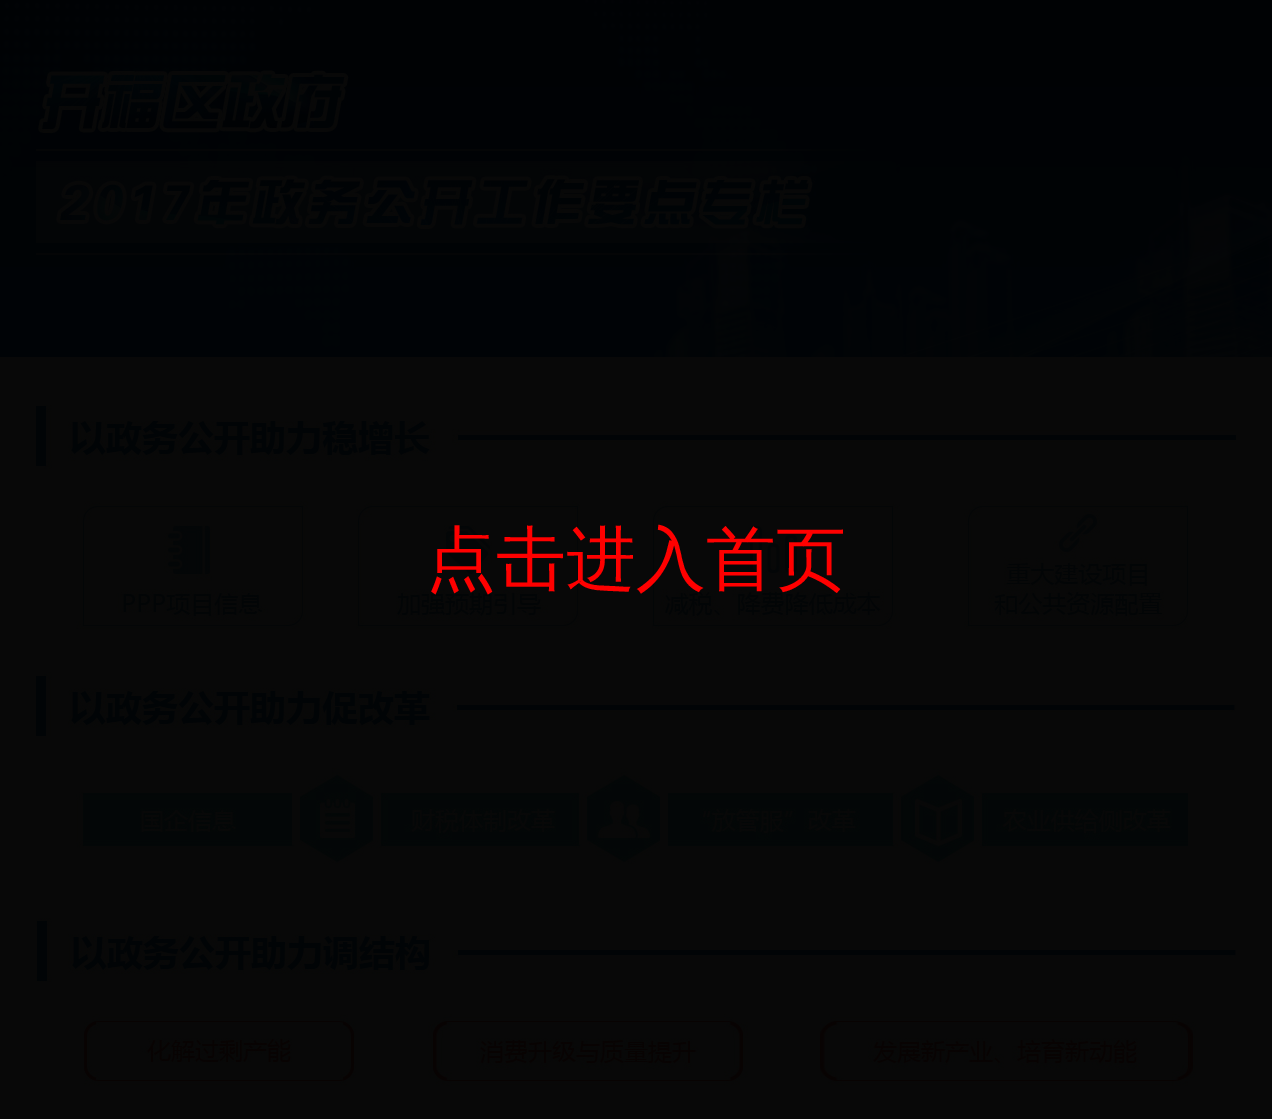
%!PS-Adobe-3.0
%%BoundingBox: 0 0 1272 1119
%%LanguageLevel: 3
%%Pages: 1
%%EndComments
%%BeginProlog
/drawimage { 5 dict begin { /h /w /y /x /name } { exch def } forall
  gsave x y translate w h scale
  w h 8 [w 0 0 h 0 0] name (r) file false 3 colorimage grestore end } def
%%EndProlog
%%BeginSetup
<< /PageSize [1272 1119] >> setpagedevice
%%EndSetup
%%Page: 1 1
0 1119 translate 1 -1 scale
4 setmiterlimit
0.031 setgray
0 0 1272 1119 rectfill
(images/1.raw) 0 0 1272 357 drawimage
(images/2.raw) 36 405 1200 224 drawimage
(images/3.raw) 36 672 1200 192 drawimage
(images/4.raw) 36 918 1200 168 drawimage
/WenQuanYiZenHei-Medium [70 0 0 -70 0 0] selectfont
1 0 0 setrgbcolor
426 583 moveto (点击进入首页) show
showpage
%%EOF
